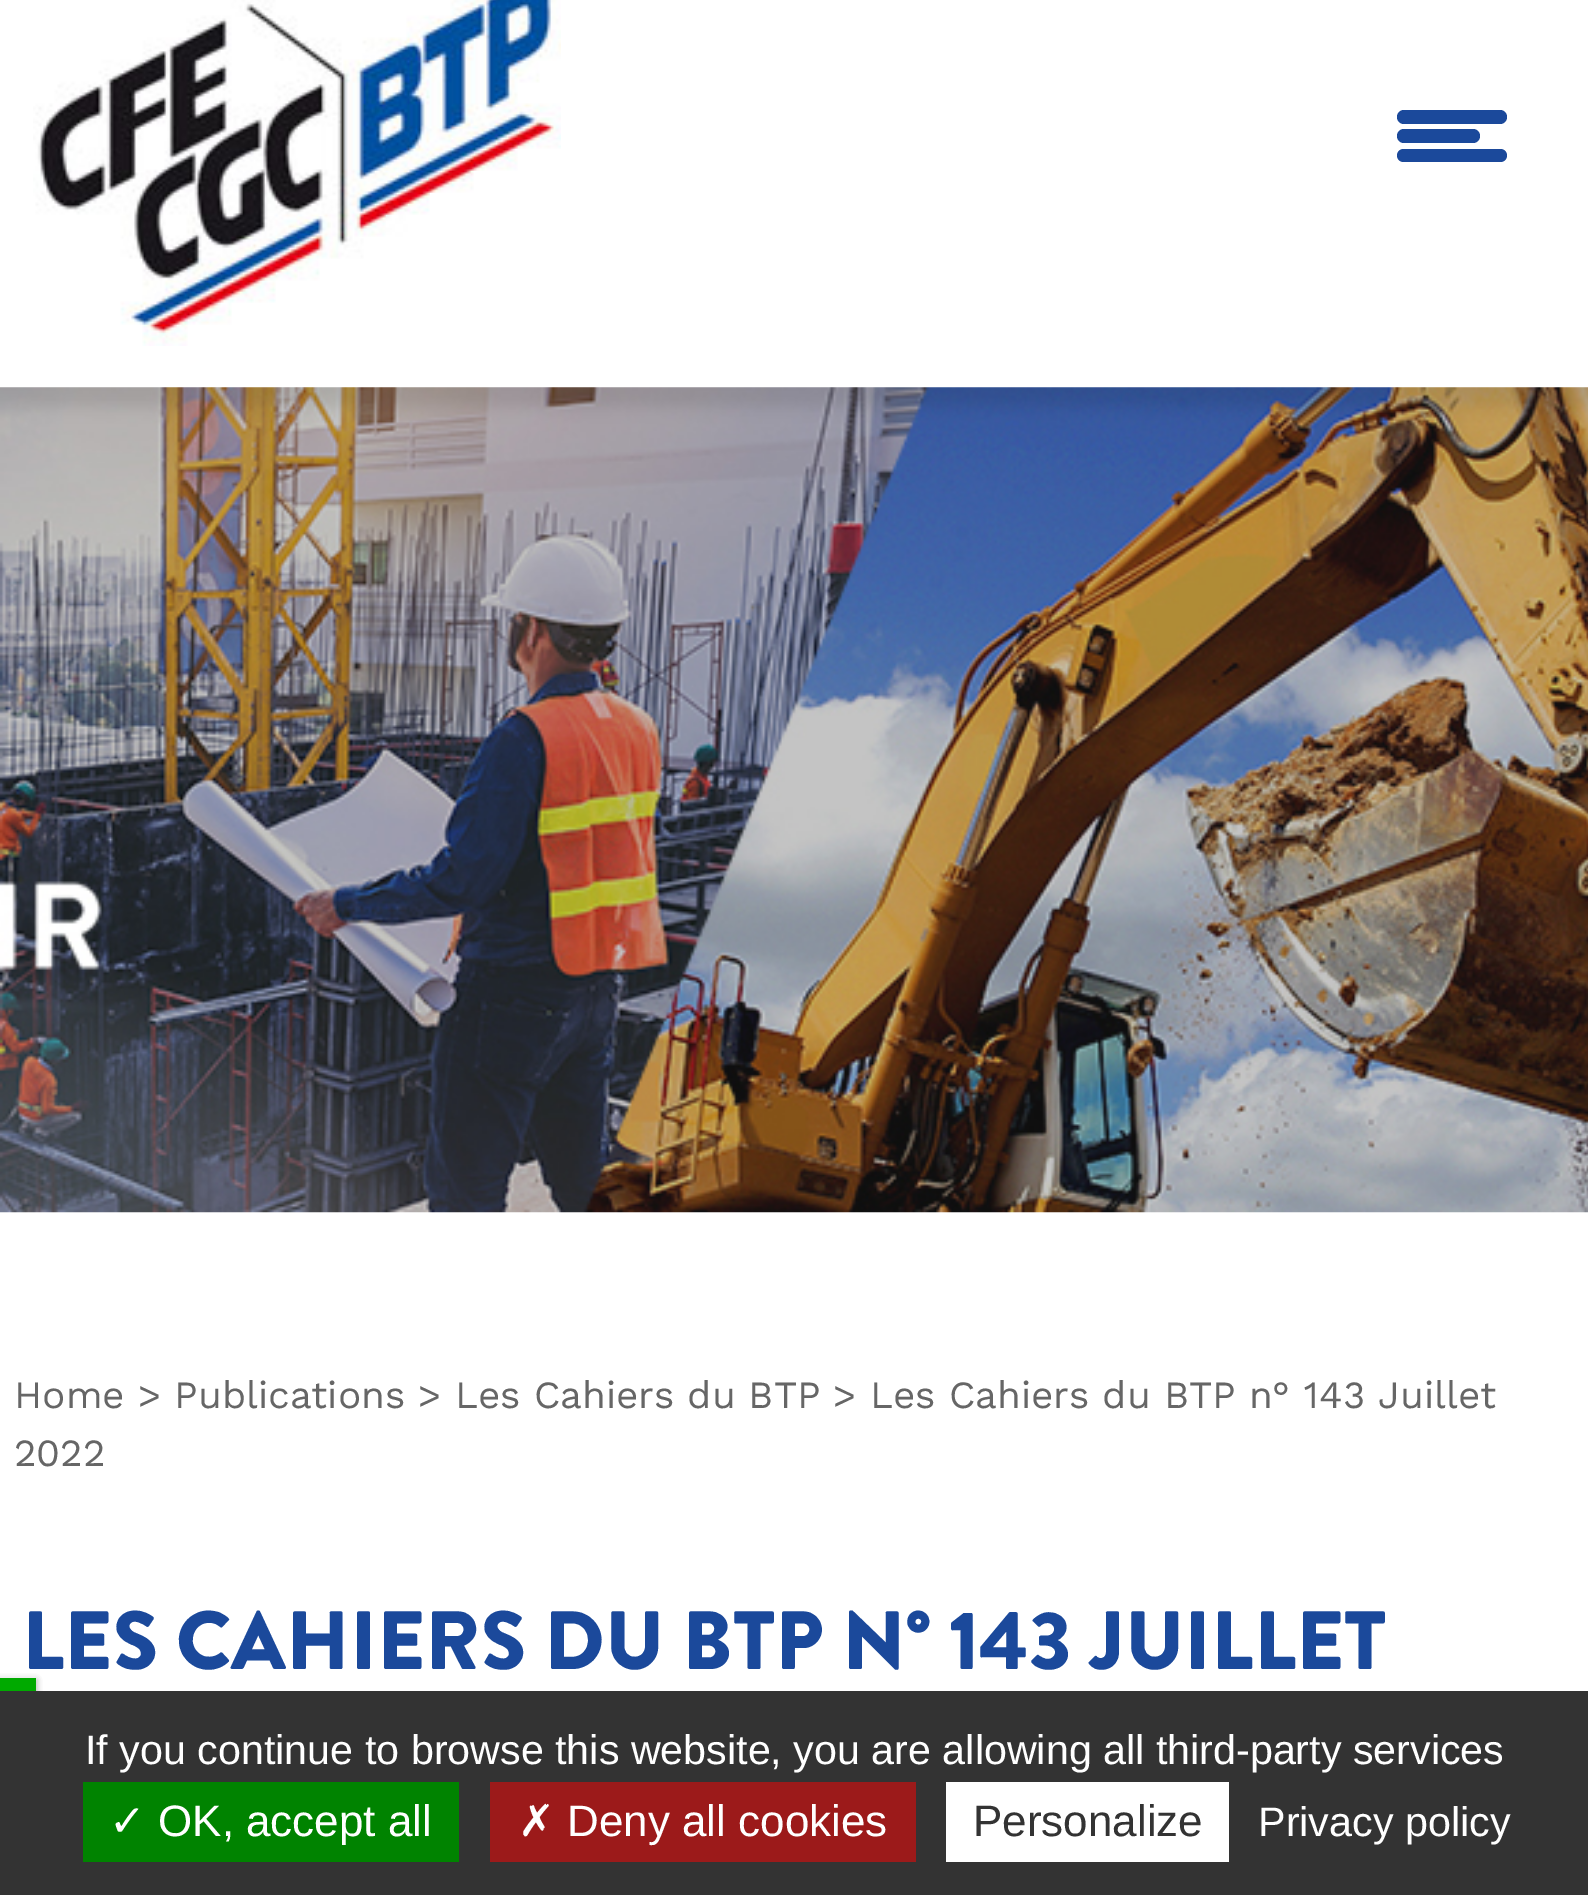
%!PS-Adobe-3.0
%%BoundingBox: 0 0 1588 1895
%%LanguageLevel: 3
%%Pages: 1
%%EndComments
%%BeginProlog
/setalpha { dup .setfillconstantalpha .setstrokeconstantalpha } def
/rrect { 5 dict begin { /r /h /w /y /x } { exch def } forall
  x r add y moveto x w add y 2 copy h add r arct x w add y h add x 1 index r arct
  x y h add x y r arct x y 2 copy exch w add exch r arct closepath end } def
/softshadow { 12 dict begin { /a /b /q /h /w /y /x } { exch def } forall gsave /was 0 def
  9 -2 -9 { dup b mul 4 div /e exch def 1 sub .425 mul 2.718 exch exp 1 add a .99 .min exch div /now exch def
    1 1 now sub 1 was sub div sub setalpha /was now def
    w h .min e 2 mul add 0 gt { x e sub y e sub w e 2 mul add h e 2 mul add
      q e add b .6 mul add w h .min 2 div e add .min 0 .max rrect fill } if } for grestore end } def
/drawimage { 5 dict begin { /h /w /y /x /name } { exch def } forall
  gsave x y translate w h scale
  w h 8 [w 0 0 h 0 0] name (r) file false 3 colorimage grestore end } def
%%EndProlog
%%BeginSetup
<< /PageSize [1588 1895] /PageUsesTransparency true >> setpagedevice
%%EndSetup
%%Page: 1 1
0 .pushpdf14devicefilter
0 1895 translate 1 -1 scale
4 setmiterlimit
1 setgray
0 0 1588 1895 rectfill
0.106 0.286 0.608 setrgbcolor
1397 110 110 14 7 rrect fill
1397 129 83 14 7 rrect fill
1397 149 110 13 6.5 rrect fill
(images/1.raw) 33 0 528 346 drawimage
(images/2.raw) 0 387 1588 826 drawimage
0.333 setgray
0 1680 36 14 0 3 1 softshadow
1 setgray
0 1678 36 13 0 3 1 softshadow
0 0.667 0 setrgbcolor
0 1678 36 13 rectfill
0.2 setgray
0 1691 1588 204 rectfill
0 0.514 0 setrgbcolor
83 1782 376 80 rectfill
0.612 0.102 0.102 setrgbcolor
490 1782 426 80 rectfill
1 setgray
946 1782 283 80 rectfill
/WorkSans-Regular [38.5 0 0 -38.5 0 0] selectfont
0.4 setgray
14 1408 moveto (Home > Publications > Les Cahiers du BTP > Les Cahiers du BTP n° 143 Juillet) show
14 1466 moveto (2022) show
/BrandonGrotesque-Black [82.5 0 0 -82.5 0 0] selectfont
0.106 0.286 0.608 setrgbcolor
22 1669 moveto (LES CAHIERS DU BTP N° 143 JUILLET) show
/LiberationSans-Regular [41.25 0 0 -41.25 0 0] selectfont
1 setgray
85 1764 moveto (If you continue to browse this website, you are allowing all third-party services) show
/DejaVuSans-Regular [44 0 0 -44 0 0] selectfont
109 1836 moveto (✓) show
/LiberationSans-Regular [44 0 0 -44 0 0] selectfont
158 1836 moveto (OK, accept all) show
/DejaVuSans-Regular [44 0 0 -44 0 0] selectfont
518 1836 moveto (✗) show
/LiberationSans-Regular [44 0 0 -44 0 0] selectfont
567 1836 moveto (Deny all cookies) show
0.2 setgray
973 1836 moveto (Personalize) show
/LiberationSans-Regular [41.25 0 0 -41.25 0 0] selectfont
1 setgray
1258 1836 moveto (Privacy policy) show
.poppdf14devicefilter showpage
%%EOF
